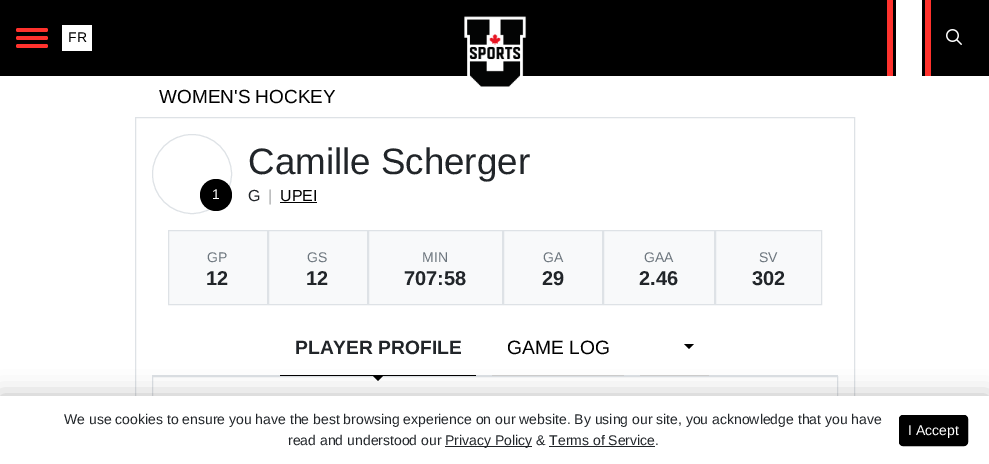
%!PS-Adobe-3.0
%%BoundingBox: 0 0 989 464
%%LanguageLevel: 3
%%Pages: 1
%%EndComments
%%BeginProlog
/setalpha { dup .setfillconstantalpha .setstrokeconstantalpha } def
/rrect { 5 dict begin { /r /h /w /y /x } { exch def } forall
  x r add y moveto x w add y 2 copy h add r arct x w add y h add x 1 index r arct
  x y h add x y r arct x y 2 copy exch w add exch r arct closepath end } def
/softshadow { 12 dict begin { /a /b /q /h /w /y /x } { exch def } forall gsave /was 0 def
  9 -2 -9 { dup b mul 4 div /e exch def 1 sub .425 mul 2.718 exch exp 1 add a .99 .min exch div /now exch def
    1 1 now sub 1 was sub div sub setalpha /was now def
    w h .min e 2 mul add 0 gt { x e sub y e sub w e 2 mul add h e 2 mul add
      q e add b .6 mul add w h .min 2 div e add .min 0 .max rrect fill } if } for grestore end } def
/drawimage { 5 dict begin { /h /w /y /x /name } { exch def } forall
  gsave x y translate w h scale
  w h 8 [w 0 0 h 0 0] name (r) file false 3 colorimage grestore end } def
%%EndProlog
%%BeginSetup
<< /PageSize [989 464] /PageUsesTransparency true >> setpagedevice
%%EndSetup
%%Page: 1 1
0 .pushpdf14devicefilter
0 464 translate 1 -1 scale
4 setmiterlimit
1 setgray
0 0 989 464 rectfill
0 setgray
0 0 989 76 rectfill
1 0.196 0.176 setrgbcolor
16 28 32 4 2 rrect fill
16 36 32 4 2 rrect fill
16 44 32 4 2 rrect fill
1 setgray
62 25 30 26 rectfill
(images/1.raw) 464 16 63 71 drawimage
1 0.196 0.176 setrgbcolor
925 0 6 76 rectfill
887 0 6 76 rectfill
1 setgray
896 0 26 76 rectfill
(images/2.raw) 946 29 16 16 drawimage
0.871 0.886 0.902 setrgbcolor
135.5 117.5 719 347 rectstroke
newpath 192 174 39.5 0 360 arc closepath stroke
0 setgray
newpath 216 195 16 0 360 arc closepath fill
280 202 37 1 rectfill
0.973 0.976 0.98 setrgbcolor
169 231 652 73 rectfill
0.871 0.886 0.902 setrgbcolor
168.5 230.5 99 74 rectstroke
268.5 230.5 99 74 rectstroke
368.5 230.5 134 74 rectstroke
503.5 230.5 99 74 rectstroke
603.5 230.5 111 74 rectstroke
715.5 230.5 106 74 rectstroke
152 375 686 1 rectfill
0 setgray
280 375 196 1 rectfill
0.871 0.886 0.902 setrgbcolor
152.5 376.5 685 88 rectstroke
0 setgray
newpath 372 375 moveto 384 375 lineto 378 381 lineto closepath fill
0.812 setgray
492 375 132 1 rectfill
640 375 69 1 rectfill
0 setgray
newpath 684 344 moveto 694 344 lineto 689 349 lineto closepath fill
0 396 989 68 0 12 0.25 softshadow
1 setgray
0 396 989 68 rectfill
0.129 0.145 0.161 setrgbcolor
445 446 87 1 rectfill
549 446 106 1 rectfill
0 setgray
899.5 415.5 68 30 3.5 rrect gsave fill grestore
stroke
/LiberationSans-Regular [14 0 0 -14 0 0] selectfont
68 42 moveto (FR) show
/LiberationSans-Regular [19 0 0 -19 0 0] selectfont
159 103 moveto (WOMEN'S HOCKEY) show
/LiberationSans-Regular [14 0 0 -14 0 0] selectfont
1 setgray
212 199 moveto (1) show
/LiberationSans-Regular [36.75 0 0 -36.75 0 0] selectfont
0.129 0.145 0.161 setrgbcolor
248 174 moveto (Camille Scherger) show
/LiberationSans-Regular [16 0 0 -16 0 0] selectfont
248 201 moveto (G) show
0.651 0.659 0.663 setrgbcolor
268 201 moveto (|) show
0 setgray
280 201 moveto (UPEI) show
/LiberationSans-Regular [14 0 0 -14 0 0] selectfont
0.424 0.459 0.49 setrgbcolor
207 262 moveto (GP) show
/LiberationSans-Bold [20 0 0 -20 0 0] selectfont
0.129 0.145 0.161 setrgbcolor
206 285 moveto (12) show
/LiberationSans-Regular [14 0 0 -14 0 0] selectfont
0.424 0.459 0.49 setrgbcolor
307 262 moveto (GS) show
/LiberationSans-Bold [20 0 0 -20 0 0] selectfont
0.129 0.145 0.161 setrgbcolor
306 285 moveto (12) show
/LiberationSans-Regular [14 0 0 -14 0 0] selectfont
0.424 0.459 0.49 setrgbcolor
422 262 moveto (MIN) show
/LiberationSans-Bold [20 0 0 -20 0 0] selectfont
0.129 0.145 0.161 setrgbcolor
404 285 moveto (707:58) show
/LiberationSans-Regular [14 0 0 -14 0 0] selectfont
0.424 0.459 0.49 setrgbcolor
543 262 moveto (GA) show
/LiberationSans-Bold [20 0 0 -20 0 0] selectfont
0.129 0.145 0.161 setrgbcolor
542 285 moveto (29) show
/LiberationSans-Regular [14 0 0 -14 0 0] selectfont
0.424 0.459 0.49 setrgbcolor
644 262 moveto (GAA) show
/LiberationSans-Bold [20 0 0 -20 0 0] selectfont
0.129 0.145 0.161 setrgbcolor
639 285 moveto (2.46) show
/LiberationSans-Regular [14 0 0 -14 0 0] selectfont
0.424 0.459 0.49 setrgbcolor
759 262 moveto (SV) show
/LiberationSans-Bold [20 0 0 -20 0 0] selectfont
0.129 0.145 0.161 setrgbcolor
752 285 moveto (302) show
/LiberationSans-Bold [19.25 0 0 -19.25 0 0] selectfont
295 354 moveto (PLAYER PROFILE) show
/LiberationSans-Regular [19.25 0 0 -19.25 0 0] selectfont
0 setgray
507 354 moveto (GAME LOG) show
/LiberationSans-Regular [14 0 0 -14 0 0] selectfont
0.129 0.145 0.161 setrgbcolor
64 424 moveto (We use cookies to ensure you have the best browsing experience on our website. By using our site, you acknowledge that you have) show
288 445 moveto (read and understood our) show
445 445 moveto (Privacy Policy & Terms of Service.) show
1 setgray
908 435 moveto (I Accept) show
.poppdf14devicefilter showpage
%%EOF
